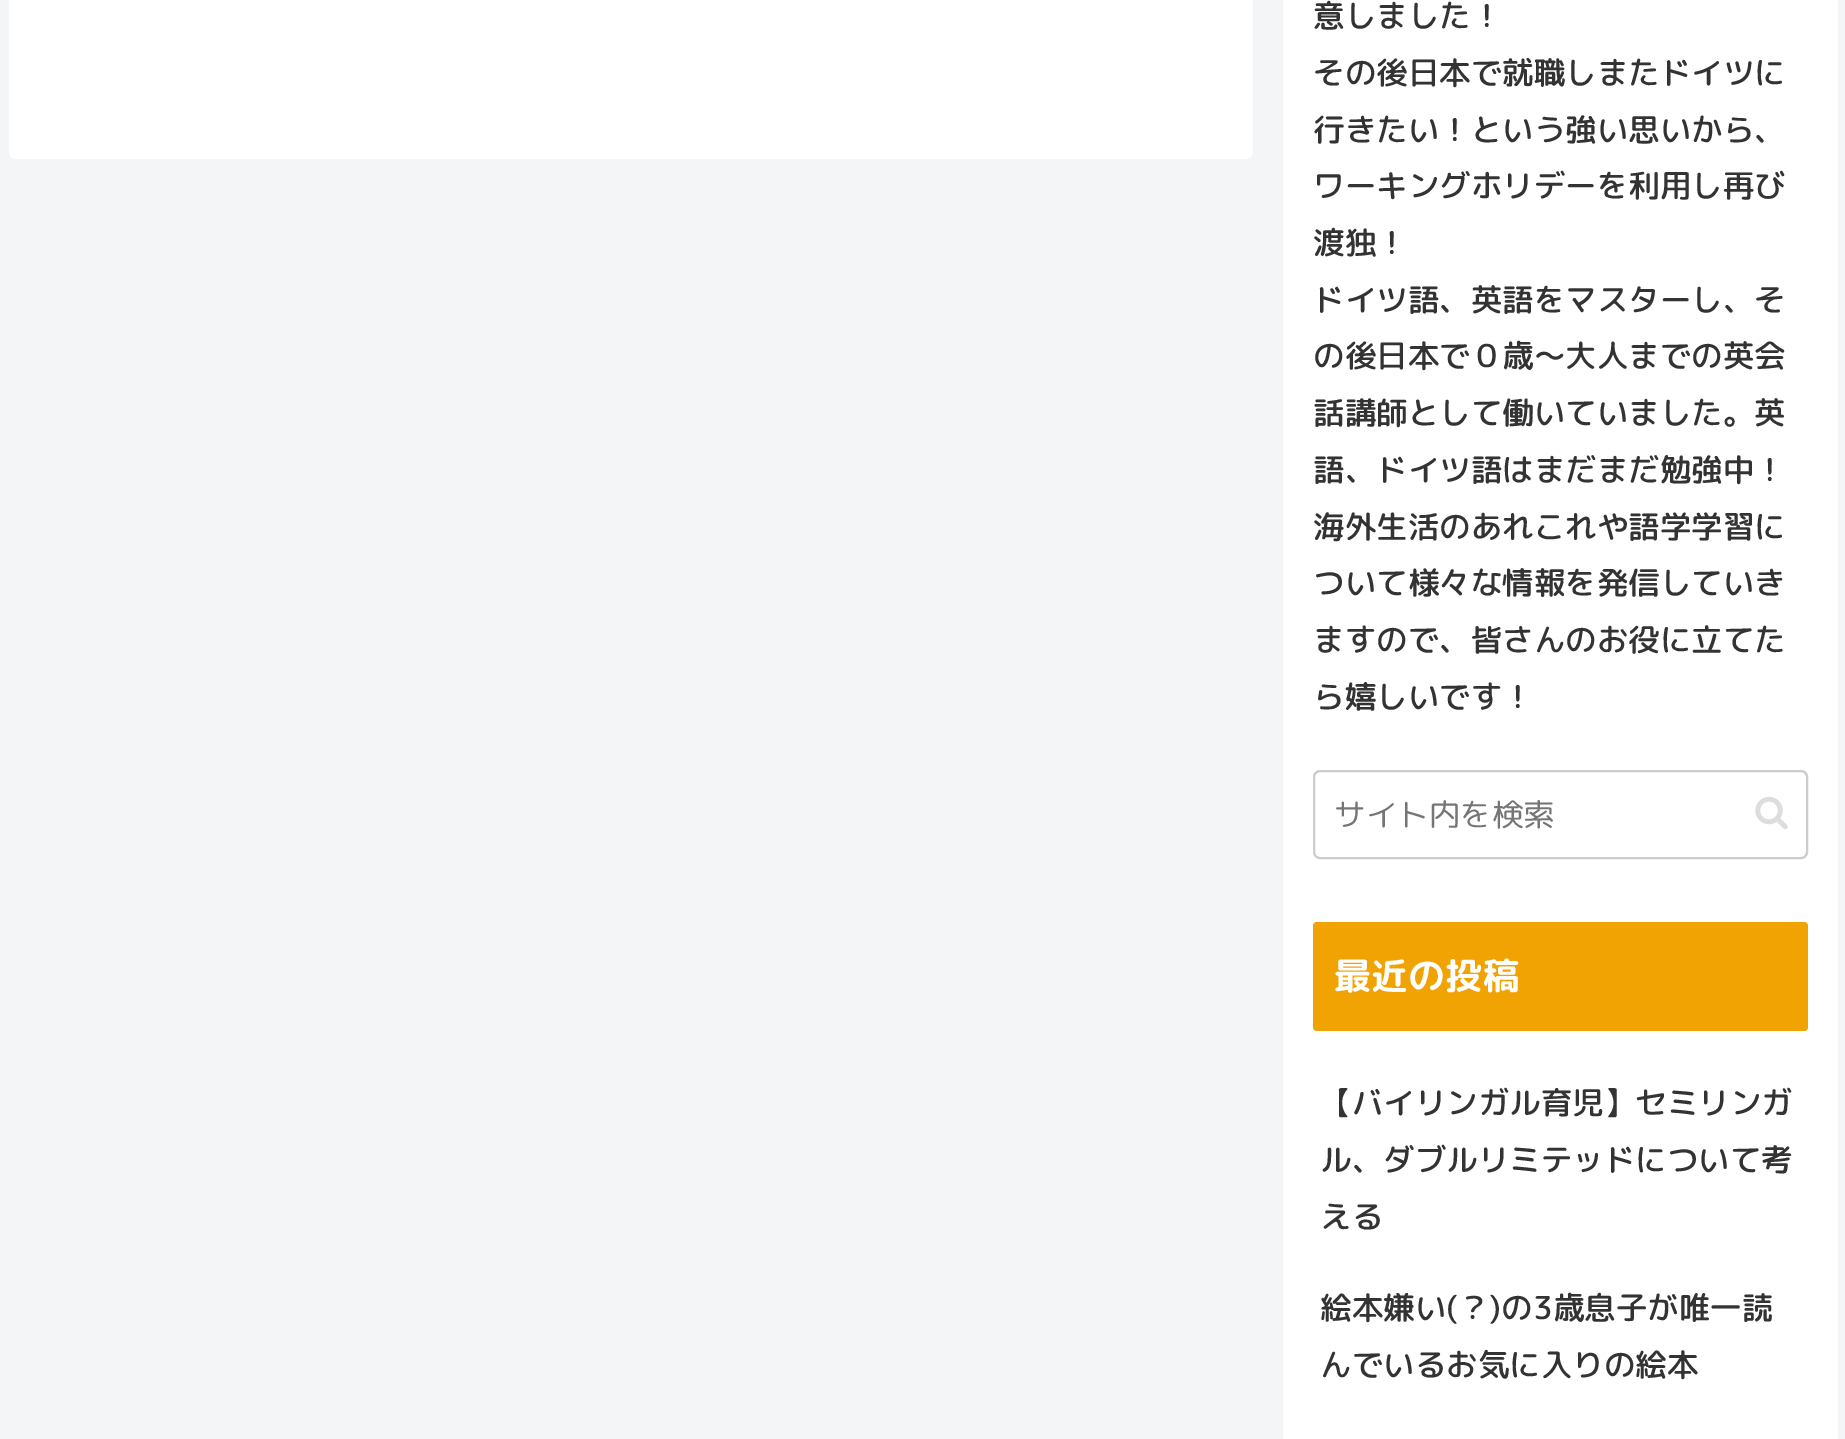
%!PS-Adobe-3.0
%%BoundingBox: 0 0 1845 1439
%%LanguageLevel: 3
%%Pages: 1
%%EndComments
%%BeginProlog
/rrect { 5 dict begin { /r /h /w /y /x } { exch def } forall
  x r add y moveto x w add y 2 copy h add r arct x w add y h add x 1 index r arct
  x y h add x y r arct x y 2 copy exch w add exch r arct closepath end } def
/drawimage { 5 dict begin { /h /w /y /x /name } { exch def } forall
  gsave x y translate w h scale
  w h 8 [w 0 0 h 0 0] name (r) file false 3 colorimage grestore end } def
%%EndProlog
%%BeginSetup
<< /PageSize [1845 1439] >> setpagedevice
%%EndSetup
%%Page: 1 1
0 1439 translate 1 -1 scale
4 setmiterlimit
0.957 0.961 0.969 setrgbcolor
0 0 1845 1439 rectfill
1 setgray
9 -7 1244 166 7 rrect fill
1283 0 555 1439 rectfill
0.8 setgray
2 setlinewidth
1314 771 493 87 6 rrect stroke
(images/1.raw) 1755 796 33 34 drawimage
0.949 0.639 0.016 setrgbcolor
1313 922 495 109 4 rrect fill
/RoundedMplus1c-Medium [31.5 0 0 -31.5 0 0] selectfont
0.2 setgray
1313 27 moveto (意しました！) show
1313 84 moveto (その後日本で就職しまたドイツに) show
1313 141 moveto (行きたい！という強い思いから、) show
1313 197 moveto (ワーキングホリデーを利用し再び) show
1313 254 moveto (渡独！) show
1313 311 moveto (ドイツ語、英語をマスターし、そ) show
1313 367 moveto (の後日本で０歳～大人までの英会) show
1313 424 moveto (話講師として働いていました。英) show
1313 481 moveto (語、ドイツ語はまだまだ勉強中！) show
1313 538 moveto (海外生活のあれこれや語学学習に) show
1313 594 moveto (ついて様々な情報を発信していき) show
1313 651 moveto (ますので、皆さんのお役に立てた) show
1313 708 moveto (ら嬉しいです！) show
/RoundedMplus1c-Regular [31.5 0 0 -31.5 0 0] selectfont
0.459 setgray
1334 826 moveto (サイト内を検索) show
/RoundedMplus1cBold-Bold [37 0 0 -37 0 0] selectfont
1 setgray
1334 989 moveto (最近の投稿) show
/RoundedMplus1c-Medium [31.5 0 0 -31.5 0 0] selectfont
0.2 setgray
1320 1114 moveto (【バイリンガル育児】セミリンガ) show
1320 1171 moveto (ル、ダブルリミテッドについて考) show
1320 1228 moveto (える) show
1320 1319 moveto (絵本嫌い\(？\)の3歳息子が唯一読) show
1320 1376 moveto (んでいるお気に入りの絵本) show
showpage
%%EOF
